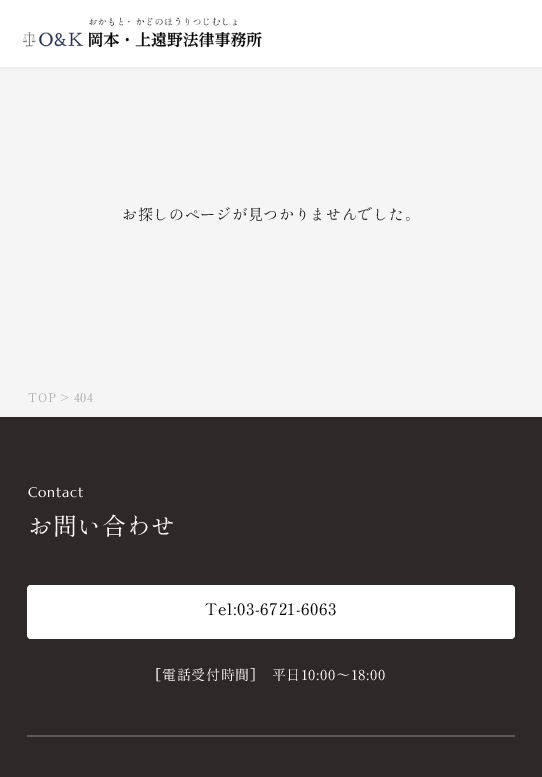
%!PS-Adobe-3.0
%%BoundingBox: 0 0 542 777
%%LanguageLevel: 3
%%Pages: 1
%%EndComments
%%BeginProlog
/setalpha { dup .setfillconstantalpha .setstrokeconstantalpha } def
/rrect { 5 dict begin { /r /h /w /y /x } { exch def } forall
  x r add y moveto x w add y 2 copy h add r arct x w add y h add x 1 index r arct
  x y h add x y r arct x y 2 copy exch w add exch r arct closepath end } def
/softshadow { 12 dict begin { /a /b /q /h /w /y /x } { exch def } forall gsave /was 0 def
  9 -2 -9 { dup b mul 4 div /e exch def 1 sub .425 mul 2.718 exch exp 1 add a .99 .min exch div /now exch def
    1 1 now sub 1 was sub div sub setalpha /was now def
    w h .min e 2 mul add 0 gt { x e sub y e sub w e 2 mul add h e 2 mul add
      q e add b .6 mul add w h .min 2 div e add .min 0 .max rrect fill } if } for grestore end } def
/drawimage { 5 dict begin { /h /w /y /x /name } { exch def } forall
  gsave x y translate w h scale
  w h 8 [w 0 0 h 0 0] name (r) file false 3 colorimage grestore end } def
%%EndProlog
%%BeginSetup
<< /PageSize [542 777] /PageUsesTransparency true >> setpagedevice
%%EndSetup
%%Page: 1 1
0 .pushpdf14devicefilter
0 777 translate 1 -1 scale
4 setmiterlimit
0.961 setgray
0 0 542 777 rectfill
0 setgray
0 1 542 67 0 1.5 0.05 softshadow
1 setgray
0 0 542 67 rectfill
(images/1.raw) 22 17 240 31 drawimage
0.18 0.161 0.161 setrgbcolor
0 417 542 360 rectfill
1 setgray
27 585 488 54 4 rrect fill
0.361 0.337 0.353 setrgbcolor
27 735 488 2 rectfill
/ShipporiMincho-Regular [15 0 0 -15 0 0] selectfont
0.11 setgray
122 220 moveto 0.7 0 (お探しのページが見つかりませんでした。) ashow
/ShipporiMincho-Regular [12 0 0 -12 0 0] selectfont
0.678 setgray
28 402 moveto 0.7 0 (TOP > 404) ashow
/Marcellus-Regular [14 0 0 -14 0 0] selectfont
1 setgray
28 497 moveto 0.7 0 (Contact) ashow
/ShipporiMincho-Regular [24 0 0 -24 0 0] selectfont
28 535 moveto 0.7 0 (お問い合わせ) ashow
/ShipporiMincho-Regular [16 0 0 -16 0 0] selectfont
0 setgray
205 615 moveto 0.7 0 (Tel:03-6721-6063) ashow
/ShipporiMincho-Regular [14 0 0 -14 0 0] selectfont
1 setgray
155 680 moveto 0.7 0 ([電話受付時間]　平日10:00～18:00) ashow
.poppdf14devicefilter showpage
%%EOF
